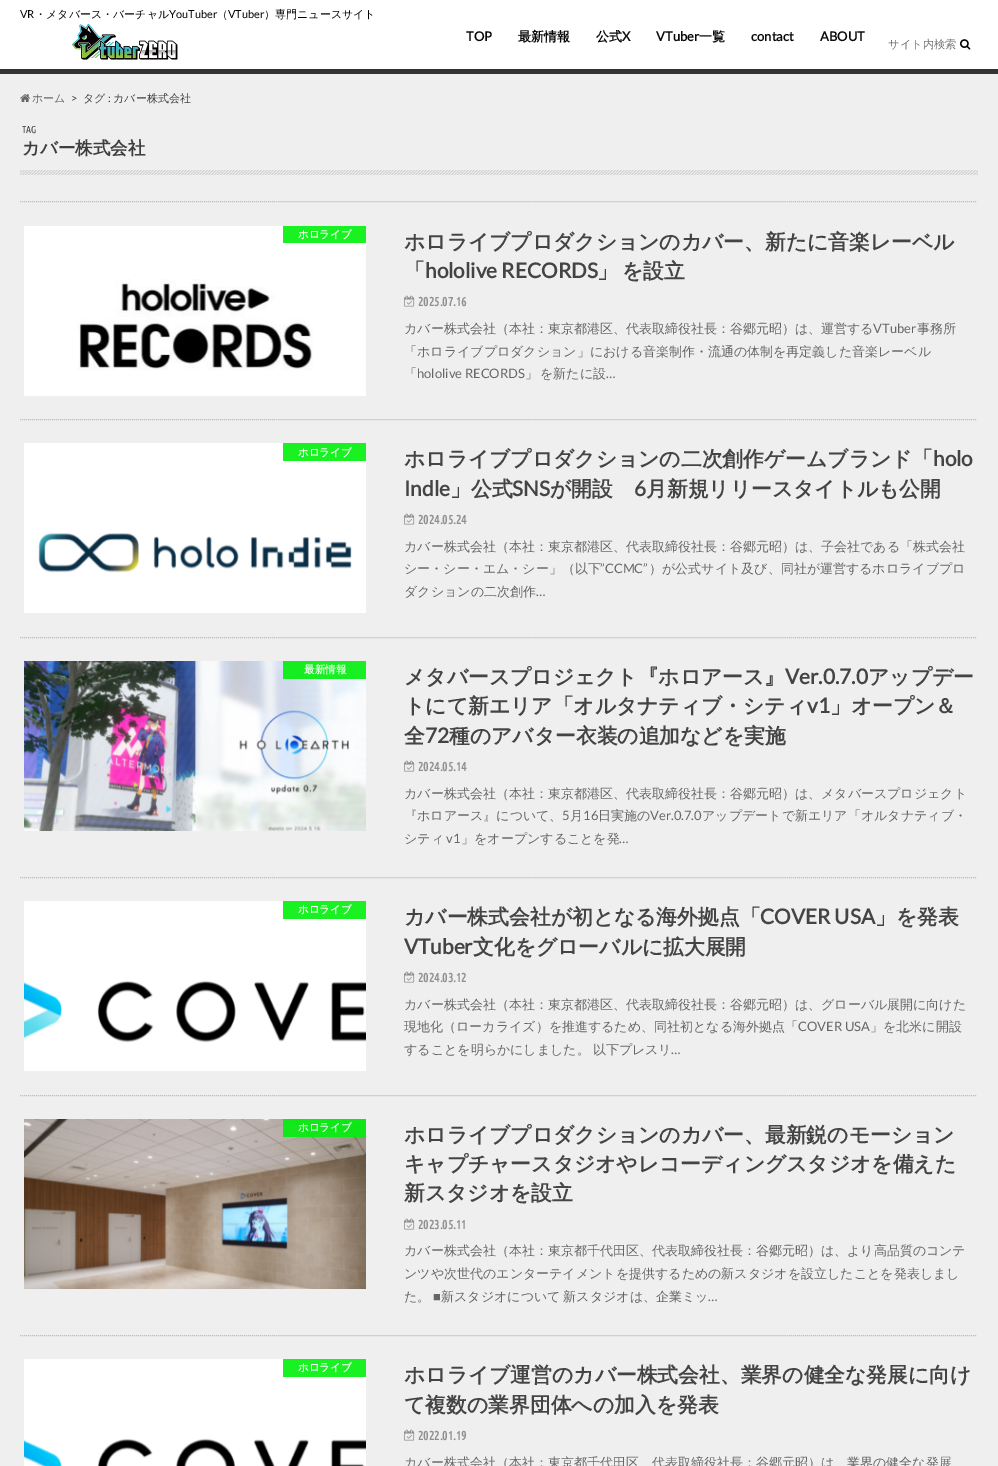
%!PS-Adobe-3.0
%%BoundingBox: 0 0 998 1466
%%LanguageLevel: 3
%%Pages: 1
%%EndComments
%%BeginProlog
/setalpha { dup .setfillconstantalpha .setstrokeconstantalpha } def
/drawimage { 5 dict begin { /h /w /y /x /name } { exch def } forall
  gsave x y translate w h scale
  w h 8 [w 0 0 h 0 0] name (r) file false 3 colorimage grestore end } def
%%EndProlog
%%BeginSetup
<< /PageSize [998 1466] /PageUsesTransparency true >> setpagedevice
%%EndSetup
%%Page: 1 1
0 .pushpdf14devicefilter
0 1466 translate 1 -1 scale
4 setmiterlimit
0.937 setgray
0 0 998 1466 rectfill
1 setgray
0 0 998 69 rectfill
0.2 setgray
0 69 998 5 rectfill
(images/1.raw) 72 24 106 36 drawimage
(images/2.raw) 960 39 11 11 drawimage
(images/3.raw) 20 94 10 8 drawimage
(images/4.raw) 20 170 958 5 drawimage
0.749 setgray
[1 1] 0 setdash
newpath 20 201.5 moveto 978 201.5 lineto stroke
newpath 20 419.5 moveto 978 419.5 lineto stroke
(images/5.raw) 24 226 342 170 drawimage
0.098 0.945 0.137 setrgbcolor
283 226 83 17 rectfill
(images/6.raw) 404 295 11 12 drawimage
0.749 setgray
newpath 20 637.5 moveto 978 637.5 lineto stroke
(images/7.raw) 24 443 342 170 drawimage
0.102 0.945 0.137 setrgbcolor
283 443 83 18 rectfill
(images/6.raw) 404 513 11 12 drawimage
0.749 setgray
newpath 20 877.5 moveto 978 877.5 lineto stroke
(images/8.raw) 24 661 342 170 drawimage
0.9 setalpha
0 0.937 0.043 setrgbcolor
283 661 83 18 rectfill
1 setalpha
(images/6.raw) 404 760 11 12 drawimage
0.749 setgray
newpath 20 1095.5 moveto 978 1095.5 lineto stroke
(images/9.raw) 24 901 342 170 drawimage
0.102 0.945 0.137 setrgbcolor
283 901 83 18 rectfill
(images/6.raw) 404 971 11 12 drawimage
0.749 setgray
newpath 20 1335.5 moveto 978 1335.5 lineto stroke
(images/10.raw) 24 1119 342 170 drawimage
0.9 setalpha
0 0.937 0.043 setrgbcolor
283 1119 83 18 rectfill
1 setalpha
(images/6.raw) 404 1218 11 12 drawimage
(images/11.raw) 24 1359 342 107 drawimage
0.102 0.945 0.137 setrgbcolor
283 1359 83 18 rectfill
(images/6.raw) 404 1429 11 12 drawimage
/Lato-Regular [11 0 0 -11 0 0] selectfont
0 setgray
20 18 moveto (VR) show
/WenQuanYiZenHei-Medium [11 0 0 -11 0 0] selectfont
35 18 moveto (・メタバース・バーチャル) show
/Lato-Regular [11 0 0 -11 0 0] selectfont
169 18 moveto (YouTuber) show
/WenQuanYiZenHei-Medium [11 0 0 -11 0 0] selectfont
217 18 moveto (（) show
/Lato-Regular [11 0 0 -11 0 0] selectfont
228 18 moveto (VTuber) show
/WenQuanYiZenHei-Medium [11 0 0 -11 0 0] selectfont
264 18 moveto (）専門ニュースサイト) show
/Lato-Bold [13 0 0 -13 0 0] selectfont
0.039 setgray
466 41 moveto (TOP) show
/WenQuanYiZenHei-Bold [13 0 0 -13 0 0] selectfont
518 41 moveto (最新情報) show
596 41 moveto (公式) show
/Lato-Bold [13 0 0 -13 0 0] selectfont
622 41 moveto (X) show
656 41 moveto (VTuber) show
/WenQuanYiZenHei-Bold [13 0 0 -13 0 0] selectfont
699 41 moveto (一覧) show
/Lato-Bold [13 0 0 -13 0 0] selectfont
751 41 moveto (contact) show
820 41 moveto (ABOUT) show
/WenQuanYiZenHei-Medium [11.25 0 0 -11.25 0 0] selectfont
0.459 setgray
888 48 moveto (サイト内検索) show
/WenQuanYiZenHei-Medium [11 0 0 -11 0 0] selectfont
0.4 setgray
32 102 moveto (ホーム) show
/Lato-Regular [11 0 0 -11 0 0] selectfont
0.243 setgray
71 102 moveto (>) show
/WenQuanYiZenHei-Medium [11 0 0 -11 0 0] selectfont
83 102 moveto (タグ) show
/Lato-Regular [11 0 0 -11 0 0] selectfont
108 102 moveto (:) show
/WenQuanYiZenHei-Medium [11 0 0 -11 0 0] selectfont
113 102 moveto (カバー株式会社) show
/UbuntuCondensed-Regular [10 0 0 -10 0 0] selectfont
22 133 moveto (TAG) show
/WenQuanYiZenHei-Bold [17.5 0 0 -17.5 0 0] selectfont
22 154 moveto (カバー株式会社) show
/WenQuanYiZenHei-Bold [10.5 0 0 -10.5 0 0] selectfont
1 setgray
298 238 moveto (ホロライブ) show
/WenQuanYiZenHei-Bold [20.8 0 0 -20.8 0 0] selectfont
0.267 setgray
404 249 moveto (ホロライブプロダクションのカバー、新たに音楽レーベル) show
404 278 moveto (「) show
/Lato-Bold [20.8 0 0 -20.8 0 0] selectfont
425 278 moveto (hololive RECORDS) show
/WenQuanYiZenHei-Bold [20.8 0 0 -20.8 0 0] selectfont
597 278 moveto (」) show
622 278 moveto (を設立) show
/UbuntuCondensed-Bold [12.5 0 0 -12.5 0 0] selectfont
0.561 setgray
418 306 moveto (2025.07.16) show
/WenQuanYiZenHei-Medium [13 0 0 -13 0 0] selectfont
0.4 setgray
404 333 moveto (カバー株式会社（本社：東京都港区、代表取締役社長：谷郷元昭）は、運営する) show
/Lato-Regular [13 0 0 -13 0 0] selectfont
873 333 moveto (VTuber) show
/WenQuanYiZenHei-Medium [13 0 0 -13 0 0] selectfont
917 333 moveto (事務所) show
404 356 moveto (「ホロライブプロダクション」における音楽制作・流通の体制を再定義した音楽レーベル) show
404 378 moveto (「) show
/Lato-Regular [13 0 0 -13 0 0] selectfont
417 378 moveto (hololive RECORDS) show
/WenQuanYiZenHei-Medium [13 0 0 -13 0 0] selectfont
525 378 moveto (」) show
540 378 moveto (を新たに設) show
/Lato-Regular [13 0 0 -13 0 0] selectfont
606 378 moveto (…) show
/WenQuanYiZenHei-Bold [10.5 0 0 -10.5 0 0] selectfont
1 setgray
298 456 moveto (ホロライブ) show
/WenQuanYiZenHei-Bold [20.8 0 0 -20.8 0 0] selectfont
0.267 setgray
404 466 moveto (ホロライブプロダクションの二次創作ゲームブランド「) show
/Lato-Bold [20.8 0 0 -20.8 0 0] selectfont
933 466 moveto (holo) show
404 496 moveto (Indle) show
/WenQuanYiZenHei-Bold [20.8 0 0 -20.8 0 0] selectfont
450 496 moveto (」公式) show
/Lato-Bold [20.8 0 0 -20.8 0 0] selectfont
512 496 moveto (SNS) show
/WenQuanYiZenHei-Bold [20.8 0 0 -20.8 0 0] selectfont
550 496 moveto (が開設) show
/Lato-Bold [20.8 0 0 -20.8 0 0] selectfont
634 496 moveto (6) show
/WenQuanYiZenHei-Bold [20.8 0 0 -20.8 0 0] selectfont
646 496 moveto (月新規リリースタイトルも公開) show
/UbuntuCondensed-Bold [12.5 0 0 -12.5 0 0] selectfont
0.561 setgray
418 524 moveto (2024.05.24) show
/WenQuanYiZenHei-Medium [13 0 0 -13 0 0] selectfont
0.4 setgray
404 551 moveto (カバー株式会社（本社：東京都港区、代表取締役社長：谷郷元昭）は、⼦会社である「株式会社) show
404 573 moveto (シー・シー・エム・シー」（以下) show
/Lato-Regular [13 0 0 -13 0 0] selectfont
600 573 moveto (”CCMC”) show
/WenQuanYiZenHei-Medium [13 0 0 -13 0 0] selectfont
649 573 moveto (）が公式サイト及び、同社が運営するホロライブプロ) show
404 596 moveto (ダクションの二次創作) show
/Lato-Regular [13 0 0 -13 0 0] selectfont
536 596 moveto (…) show
/WenQuanYiZenHei-Bold [10.5 0 0 -10.5 0 0] selectfont
0.91 0.992 0.914 setrgbcolor
304 673 moveto (最新情報) show
/WenQuanYiZenHei-Bold [20.8 0 0 -20.8 0 0] selectfont
0.267 setgray
404 684 moveto (メタバースプロジェクト『ホロアース』) show
/Lato-Bold [20.8 0 0 -20.8 0 0] selectfont
785 684 moveto (Ver.0.7.0) show
/WenQuanYiZenHei-Bold [20.8 0 0 -20.8 0 0] selectfont
868 684 moveto (アップデー) show
404 713 moveto (トにて新エリア「オルタナティブ・シティ) show
/Lato-Bold [20.8 0 0 -20.8 0 0] selectfont
807 713 moveto (v1) show
/WenQuanYiZenHei-Bold [20.8 0 0 -20.8 0 0] selectfont
830 713 moveto (」オープン＆) show
404 743 moveto (全) show
/Lato-Bold [20.8 0 0 -20.8 0 0] selectfont
425 743 moveto (72) show
/WenQuanYiZenHei-Bold [20.8 0 0 -20.8 0 0] selectfont
449 743 moveto (種のアバター衣装の追加などを実施) show
/UbuntuCondensed-Bold [12.5 0 0 -12.5 0 0] selectfont
0.561 setgray
418 771 moveto (2024.05.14) show
/WenQuanYiZenHei-Medium [13 0 0 -13 0 0] selectfont
0.4 setgray
404 798 moveto (カバー株式会社（本社：東京都港区、代表取締役社長：谷郷元昭）は、メタバースプロジェクト) show
404 820 moveto (『ホロアース』について、) show
/Lato-Regular [13 0 0 -13 0 0] selectfont
562 820 moveto (5) show
/WenQuanYiZenHei-Medium [13 0 0 -13 0 0] selectfont
570 820 moveto (月) show
/Lato-Regular [13 0 0 -13 0 0] selectfont
583 820 moveto (16) show
/WenQuanYiZenHei-Medium [13 0 0 -13 0 0] selectfont
598 820 moveto (日実施の) show
/Lato-Regular [13 0 0 -13 0 0] selectfont
650 820 moveto (Ver.0.7.0) show
/WenQuanYiZenHei-Medium [13 0 0 -13 0 0] selectfont
702 820 moveto (アップデートで新エリア「オルタナティブ・) show
404 843 moveto (シティ) show
/Lato-Regular [13 0 0 -13 0 0] selectfont
446 843 moveto (v1) show
/WenQuanYiZenHei-Medium [13 0 0 -13 0 0] selectfont
461 843 moveto (」をオープンすることを発) show
/Lato-Regular [13 0 0 -13 0 0] selectfont
619 843 moveto (…) show
/WenQuanYiZenHei-Bold [10.5 0 0 -10.5 0 0] selectfont
1 setgray
298 913 moveto (ホロライブ) show
/WenQuanYiZenHei-Bold [20.8 0 0 -20.8 0 0] selectfont
0.267 setgray
404 924 moveto (カバー株式会社が初となる海外拠点「) show
/Lato-Bold [20.8 0 0 -20.8 0 0] selectfont
760 924 moveto (COVER USA) show
/WenQuanYiZenHei-Bold [20.8 0 0 -20.8 0 0] selectfont
875 924 moveto (」を発表) show
/Lato-Bold [20.8 0 0 -20.8 0 0] selectfont
404 954 moveto (VTuber) show
/WenQuanYiZenHei-Bold [20.8 0 0 -20.8 0 0] selectfont
473 954 moveto (文化をグローバルに拡大展開) show
/UbuntuCondensed-Bold [12.5 0 0 -12.5 0 0] selectfont
0.561 setgray
418 982 moveto (2024.03.12) show
/WenQuanYiZenHei-Medium [13 0 0 -13 0 0] selectfont
0.4 setgray
404 1009 moveto (カバー株式会社（本社：東京都港区、代表取締役社長：谷郷元昭）は、グローバル展開に向けた) show
404 1031 moveto (現地化（ローカライズ）を推進するため、同社初となる海外拠点「) show
/Lato-Regular [13 0 0 -13 0 0] selectfont
798 1031 moveto (COVER USA) show
/WenQuanYiZenHei-Medium [13 0 0 -13 0 0] selectfont
870 1031 moveto (」を北米に開設) show
404 1054 moveto -1 0 32 (することを明らかにしました。 以下プレスリ) widthshow
/Lato-Regular [13 0 0 -13 0 0] selectfont
671 1054 moveto (…) show
/WenQuanYiZenHei-Bold [10.5 0 0 -10.5 0 0] selectfont
0.91 0.992 0.914 setrgbcolor
298 1131 moveto (ホロライブ) show
/WenQuanYiZenHei-Bold [20.8 0 0 -20.8 0 0] selectfont
0.267 setgray
404 1142 moveto (ホロライブプロダクションのカバー、最新鋭のモーション) show
404 1171 moveto (キャプチャースタジオやレコーディングスタジオを備えた) show
404 1200 moveto (新スタジオを設立) show
/UbuntuCondensed-Bold [12.5 0 0 -12.5 0 0] selectfont
0.561 setgray
418 1229 moveto (2023.05.11) show
/WenQuanYiZenHei-Medium [13 0 0 -13 0 0] selectfont
0.4 setgray
404 1255 moveto (カバー株式会社（本社：東京都千代田区、代表取締役社長：谷郷元昭）は、より高品質のコンテ) show
404 1278 moveto (ンツや次世代のエンターテイメントを提供するための新スタジオを設立したことを発表しまし) show
404 1301 moveto (た。) show
/LiberationSans-Regular [13 0 0 -13 0 0] selectfont
433 1301 moveto (■) show
/WenQuanYiZenHei-Medium [13 0 0 -13 0 0] selectfont
441 1301 moveto -1 0 32 (新スタジオについて 新スタジオは、企業ミッ) widthshow
/Lato-Regular [13 0 0 -13 0 0] selectfont
708 1301 moveto (…) show
/WenQuanYiZenHei-Bold [10.5 0 0 -10.5 0 0] selectfont
1 setgray
298 1371 moveto (ホロライブ) show
/WenQuanYiZenHei-Bold [20.8 0 0 -20.8 0 0] selectfont
0.267 setgray
404 1382 moveto (ホロライブ運営のカバー株式会社、業界の健全な発展に向け) show
404 1412 moveto (て複数の業界団体への加入を発表) show
/UbuntuCondensed-Bold [12.5 0 0 -12.5 0 0] selectfont
0.561 setgray
418 1440 moveto (2022.01.19) show
/WenQuanYiZenHei-Medium [13 0 0 -13 0 0] selectfont
0.4 setgray
404 1467 moveto (カバー株式会社（本社：東京都千代田区、代表取締役社長：谷郷元昭）は、業界の健全な発展) show
.poppdf14devicefilter showpage
%%EOF
